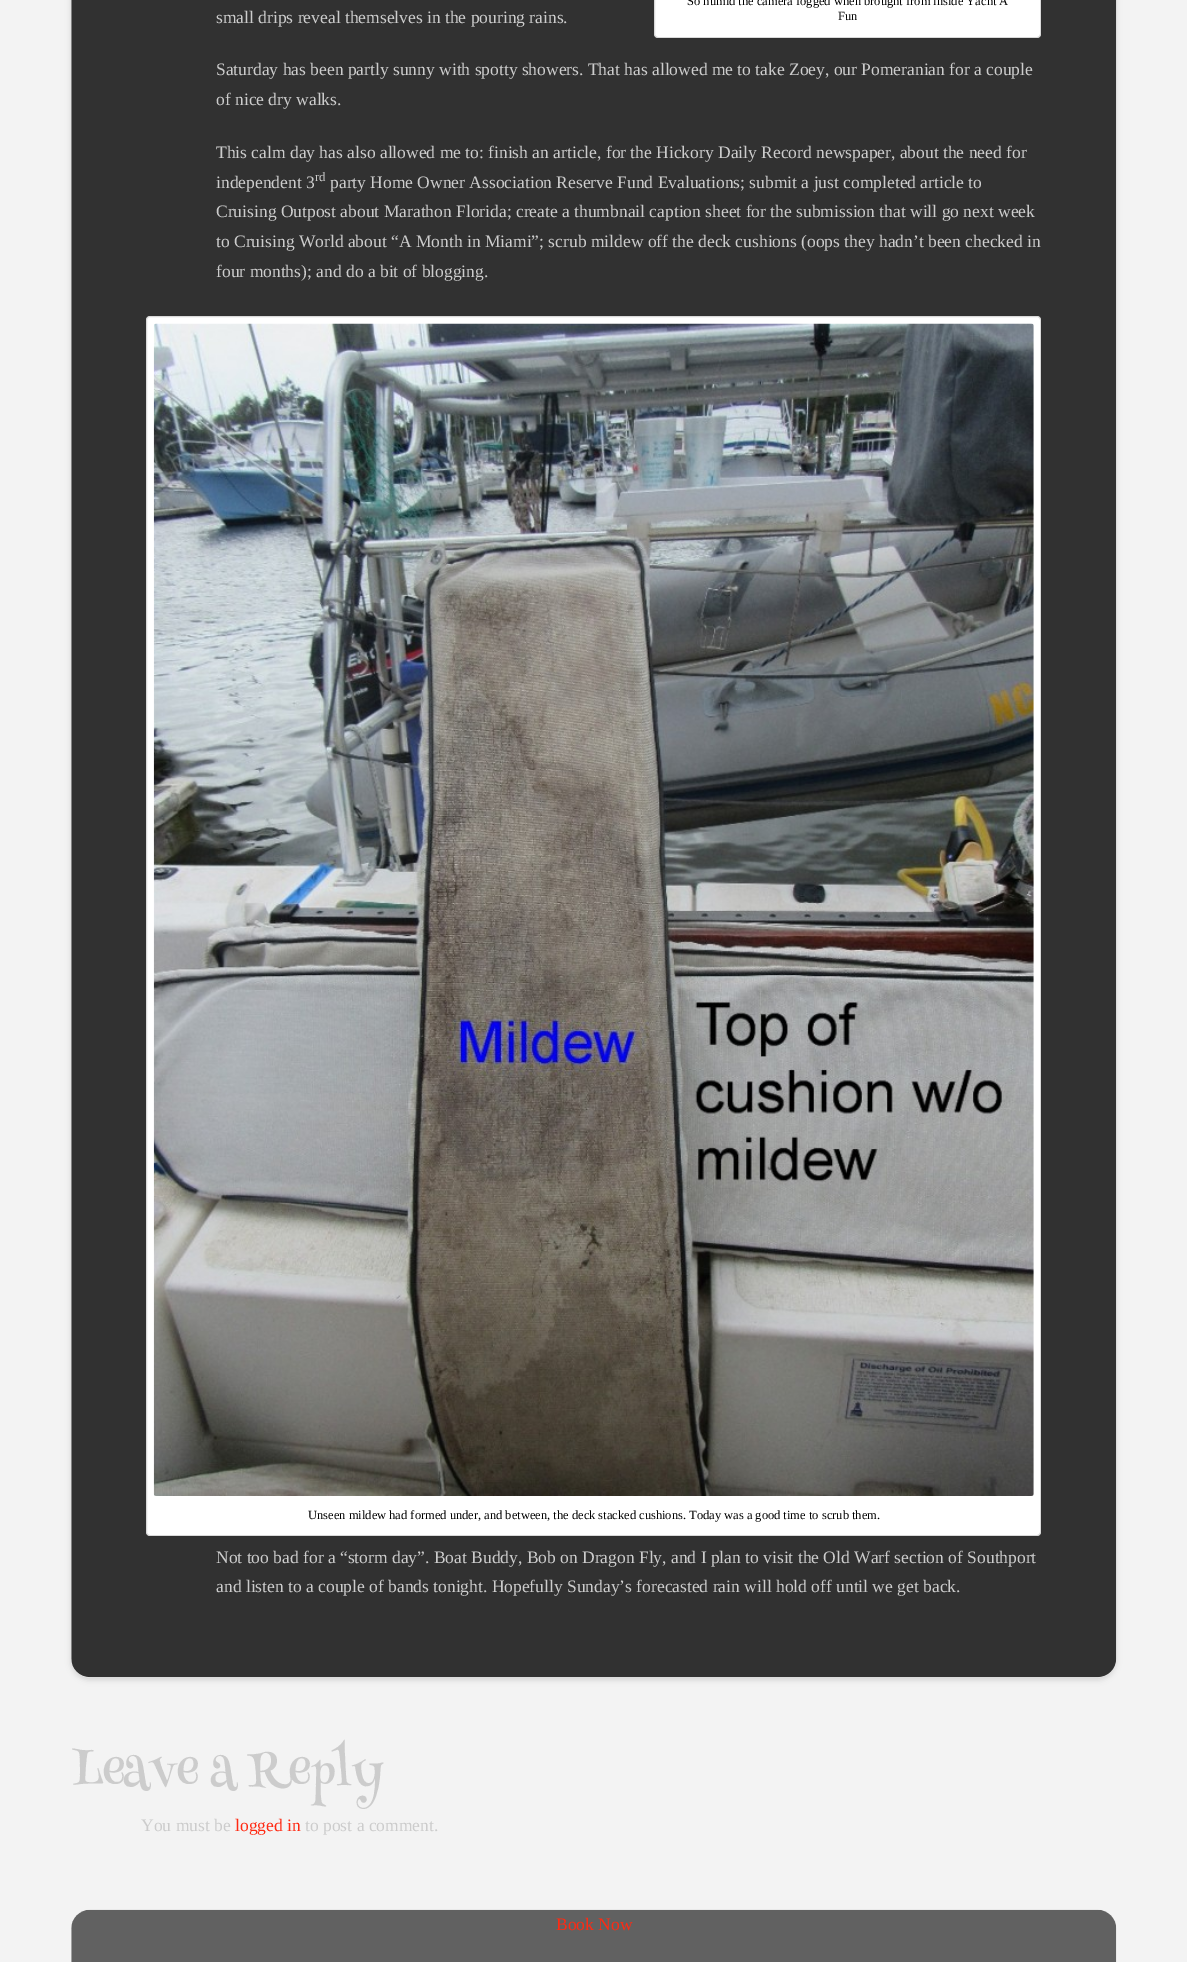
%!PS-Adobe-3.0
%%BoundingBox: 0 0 1187 1962
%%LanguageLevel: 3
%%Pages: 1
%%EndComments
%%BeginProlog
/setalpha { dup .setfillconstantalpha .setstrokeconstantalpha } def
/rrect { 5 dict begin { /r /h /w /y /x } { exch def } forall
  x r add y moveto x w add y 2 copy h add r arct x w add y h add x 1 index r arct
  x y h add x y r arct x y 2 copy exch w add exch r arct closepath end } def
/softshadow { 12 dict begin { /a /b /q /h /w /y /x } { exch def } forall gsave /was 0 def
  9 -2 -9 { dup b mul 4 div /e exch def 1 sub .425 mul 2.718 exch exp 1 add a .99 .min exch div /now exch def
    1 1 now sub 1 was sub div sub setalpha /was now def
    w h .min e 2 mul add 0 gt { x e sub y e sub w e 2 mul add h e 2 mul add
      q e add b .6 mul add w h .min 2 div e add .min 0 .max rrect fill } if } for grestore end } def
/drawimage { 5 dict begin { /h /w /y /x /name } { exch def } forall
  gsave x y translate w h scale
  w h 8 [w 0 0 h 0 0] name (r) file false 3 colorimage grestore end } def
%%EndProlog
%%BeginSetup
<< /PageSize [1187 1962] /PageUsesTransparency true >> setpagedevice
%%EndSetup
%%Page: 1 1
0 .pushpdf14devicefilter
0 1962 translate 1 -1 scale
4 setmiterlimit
0.953 setgray
0 0 1187 1962 rectfill
gsave
newpath 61 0 moveto 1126 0 lineto 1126 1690 lineto 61 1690 lineto closepath 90 -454 moveto 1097 -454 lineto 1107.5 -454 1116 -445.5 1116 -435 curveto 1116 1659 lineto 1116 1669.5 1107.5 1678 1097 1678 curveto 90 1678 lineto 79.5 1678 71 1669.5 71 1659 curveto 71 -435 lineto 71 -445.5 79.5 -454 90 -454 curveto closepath eoclip newpath
0 setgray
71 -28 1045 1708 19 3 0.13 softshadow
grestore
(images/1.raw) 71 0 1046 1678 drawimage
1 setgray
654 -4 387 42 4 rrect fill
0.15 setalpha
0 setgray
654.5 -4.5 386 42 3.5 rrect stroke
1 setalpha
1 setgray
146 316 895 1220 4 rrect fill
0.15 setalpha
0 setgray
146.5 316.5 894 1219 3.5 rrect stroke
1 setalpha
(images/2.raw) 153 323 881 1173 drawimage
(images/3.raw) 71 1909 1046 53 drawimage
/LiberationSerif-Regular [17.5 0 0 -17.5 0 0] selectfont
0.8 setgray
216 23 moveto (small drips reveal themselves in the pouring rains.) show
/LiberationSerif-Regular [12.5 0 0 -12.5 0 0] selectfont
0 setgray
687 5 moveto (So humid the camera fogged when brought from inside Yacht A) show
838 20 moveto (Fun) show
/LiberationSerif-Regular [17.5 0 0 -17.5 0 0] selectfont
0.8 setgray
216 75 moveto (Saturday has been partly sunny with spotty showers. That has allowed me to take Zoey, our Pomeranian for a couple) show
216 105 moveto (of nice dry walks.) show
216 158 moveto (This calm day has also allowed me to: finish an article, for the Hickory Daily Record newspaper, about the need for) show
216 188 moveto (independent 3) show
/LiberationSerif-Regular [13 0 0 -13 0 0] selectfont
315 181 moveto (rd) show
/LiberationSerif-Regular [17.5 0 0 -17.5 0 0] selectfont
330 188 moveto (party Home Owner Association Reserve Fund Evaluations; submit a just completed article to) show
216 217 moveto (Cruising Outpost about Marathon Florida; create a thumbnail caption sheet for the submission that will go next week) show
216 247 moveto (to Cruising World about “A Month in Miami”; scrub mildew off the deck cushions \(oops they hadn’t been checked in) show
216 277 moveto (four months\); and do a bit of blogging.) show
/LiberationSerif-Regular [12.5 0 0 -12.5 0 0] selectfont
0 setgray
308 1519 moveto (Unseen mildew had formed under, and between, the deck stacked cushions. Today was a good time to scrub them.) show
/LiberationSerif-Regular [17.5 0 0 -17.5 0 0] selectfont
0.8 setgray
216 1563 moveto (Not too bad for a “storm day”. Boat Buddy, Bob on Dragon Fly, and I plan to visit the Old Warf section of Southport) show
216 1592 moveto (and listen to a couple of bands tonight. Hopefully Sunday’s forecasted rain will hold off until we get back.) show
/HennyPenny-Regular [50 0 0 -50 0 0] selectfont
71 1786 moveto -1.25 0 (Leave a Reply) ashow
/LiberationSerif-Regular [17.5 0 0 -17.5 0 0] selectfont
141 1831 moveto (You must be) show
1 0.165 0.075 setrgbcolor
235 1831 moveto (logged in) show
0.8 setgray
305 1831 moveto (to post a comment.) show
1 0.165 0.075 setrgbcolor
556 1930 moveto (Book Now) show
.poppdf14devicefilter showpage
%%EOF
